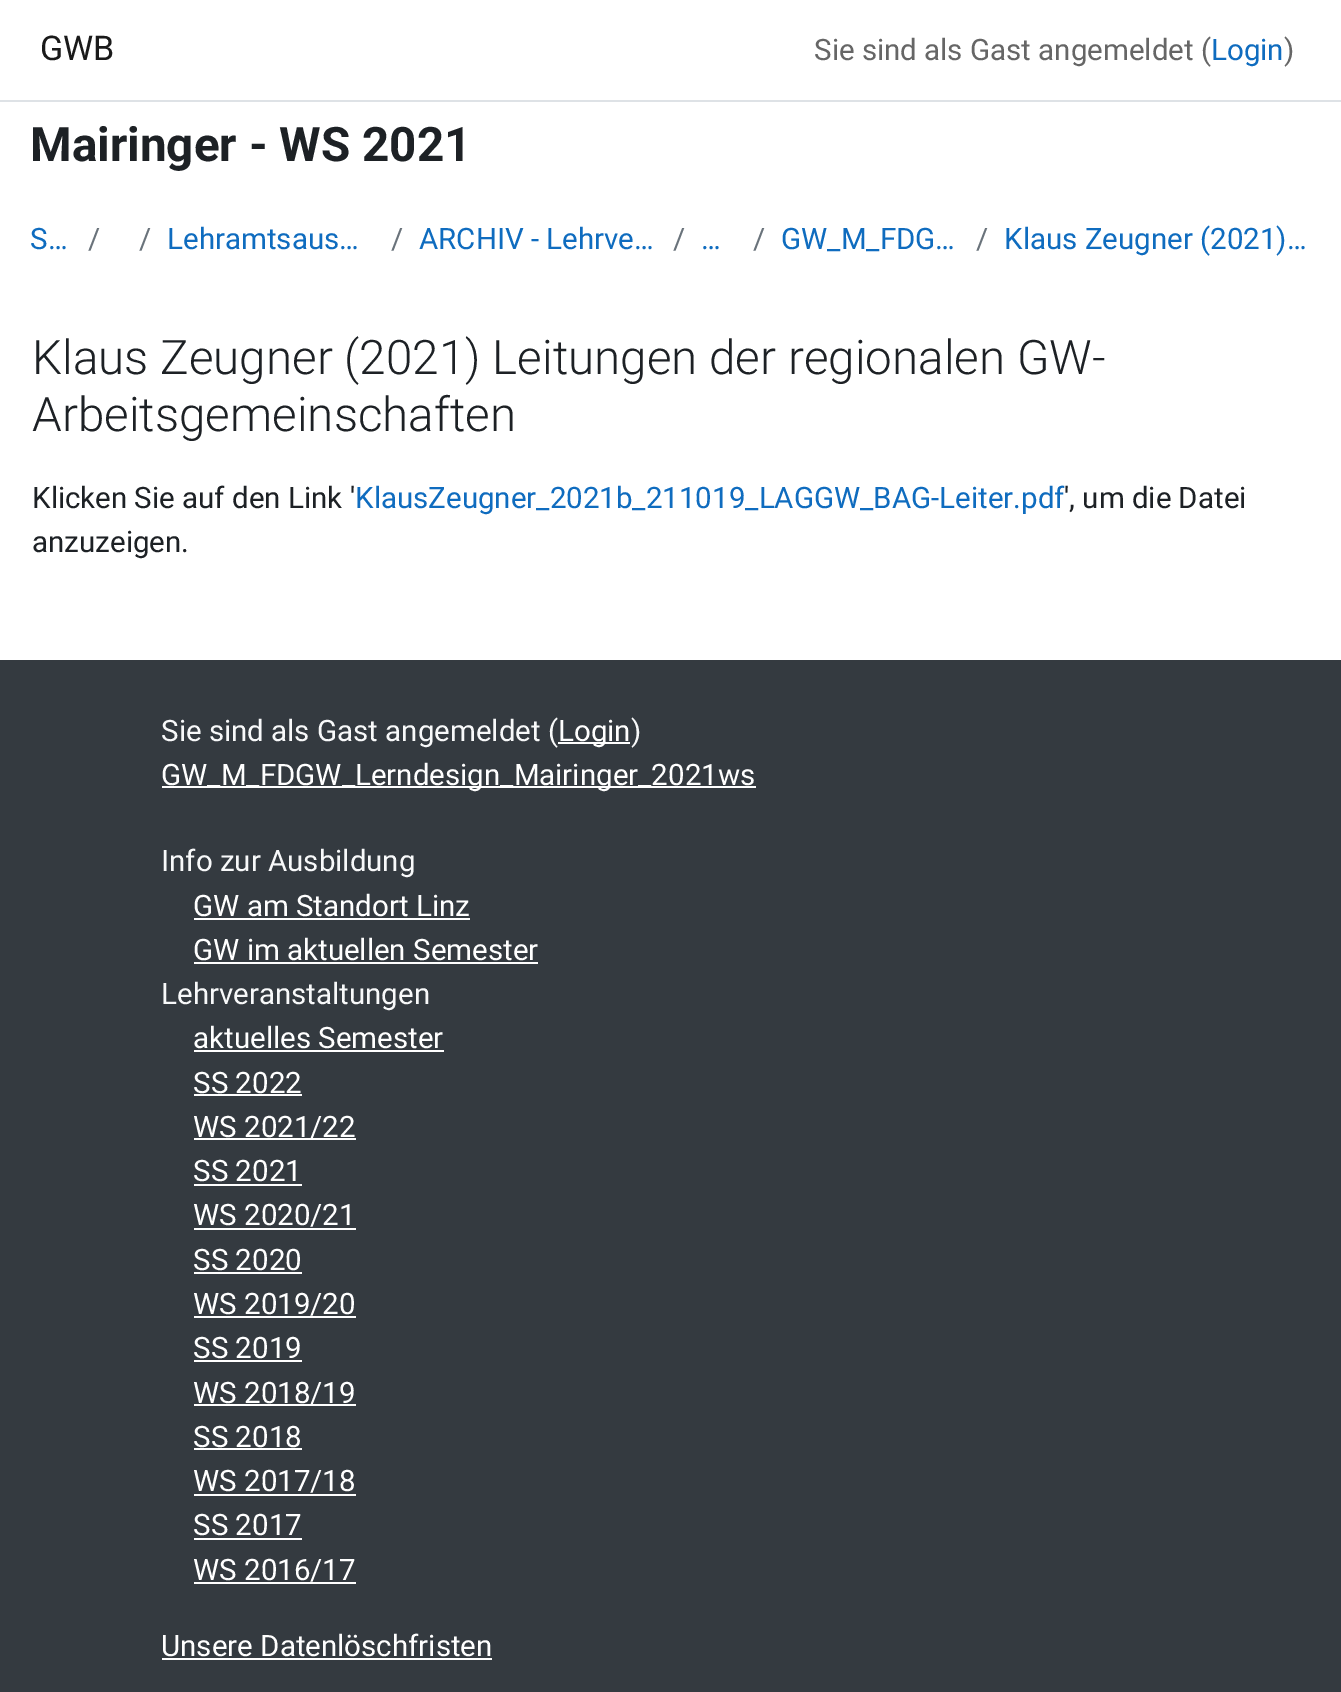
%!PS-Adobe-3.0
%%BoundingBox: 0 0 1341 1692
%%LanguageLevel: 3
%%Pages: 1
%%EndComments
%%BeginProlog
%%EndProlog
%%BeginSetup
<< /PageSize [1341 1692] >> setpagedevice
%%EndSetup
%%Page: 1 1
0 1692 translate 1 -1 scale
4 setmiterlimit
1 setgray
0 0 1341 1692 rectfill
0.871 0.886 0.902 setrgbcolor
0 100 1341 2 rectfill
0.204 0.227 0.251 setrgbcolor
0 660 1341 1032 rectfill
1 setgray
558 742 72 2 rectfill
162 786 594 2 rectfill
194 918 276 2 rectfill
194 962 344 2 rectfill
194 1050 250 2 rectfill
194 1094 108 2 rectfill
194 1138 162 2 rectfill
194 1184 108 2 rectfill
194 1228 162 2 rectfill
194 1272 108 2 rectfill
194 1316 162 2 rectfill
194 1360 108 2 rectfill
194 1404 162 2 rectfill
194 1448 108 2 rectfill
194 1494 162 2 rectfill
194 1538 108 2 rectfill
194 1582 162 2 rectfill
162 1658 330 2 rectfill
/Roboto-Regular [34 0 0 -34 0 0] selectfont
0.102 setgray
40 60 moveto (GWB) show
/Roboto-Regular [29.5 0 0 -29.5 0 0] selectfont
0.4 setgray
814 60 moveto (Sie sind als Gast angemeldet \() show
0.059 0.424 0.749 setrgbcolor
1211 60 moveto (Login) show
0.4 setgray
1284 60 moveto (\)) show
/Roboto-Bold [47.6 0 0 -47.6 0 0] selectfont
0.114 0.129 0.145 setrgbcolor
30 161 moveto (Mairinger - WS 2021) show
/Roboto-Regular [29.5 0 0 -29.5 0 0] selectfont
0.059 0.424 0.749 setrgbcolor
30 249 moveto (S…) show
0.416 0.451 0.482 setrgbcolor
88 249 moveto (/) show
139 249 moveto (/) show
0.059 0.424 0.749 setrgbcolor
167 249 moveto (Lehramtsaus…) show
0.416 0.451 0.482 setrgbcolor
391 249 moveto (/) show
0.059 0.424 0.749 setrgbcolor
419 249 moveto (ARCHIV - Lehrve…) show
0.416 0.451 0.482 setrgbcolor
673 249 moveto (/) show
0.059 0.424 0.749 setrgbcolor
701 249 moveto (…) show
0.416 0.451 0.482 setrgbcolor
753 249 moveto (/) show
0.059 0.424 0.749 setrgbcolor
781 249 moveto (GW_M_FDG…) show
0.416 0.451 0.482 setrgbcolor
976 249 moveto (/) show
0.059 0.424 0.749 setrgbcolor
1004 249 moveto (Klaus Zeugner \(2021\)…) show
/Roboto-Light [47.6 0 0 -47.6 0 0] selectfont
0.114 0.129 0.145 setrgbcolor
32 374 moveto (Klaus Zeugner \(2021\) Leitungen der regionalen GW-) show
32 431 moveto (Arbeitsgemeinschaften) show
/Roboto-Regular [29.5 0 0 -29.5 0 0] selectfont
32 508 moveto (Klicken Sie auf den Link ') show
0.059 0.424 0.749 setrgbcolor
355 508 moveto (KlausZeugner_2021b_211019_LAGGW_BAG-Leiter.pdf) show
0.114 0.129 0.145 setrgbcolor
1064 508 moveto (', um die Datei) show
32 552 moveto (anzuzeigen.) show
0.973 0.976 0.98 setrgbcolor
161 741 moveto (Sie sind als Gast angemeldet \() show
1 setgray
558 741 moveto (Login) show
0.973 0.976 0.98 setrgbcolor
631 741 moveto (\)) show
1 setgray
161 785 moveto (GW_M_FDGW_Lerndesign_Mairinger_2021ws) show
0.973 0.976 0.98 setrgbcolor
161 871 moveto (Info zur Ausbildung) show
1 setgray
193 916 moveto (GW am Standort Linz) show
193 960 moveto (GW im aktuellen Semester) show
0.973 0.976 0.98 setrgbcolor
161 1004 moveto (Lehrveranstaltungen) show
1 setgray
193 1048 moveto (aktuelles Semester) show
193 1093 moveto (SS 2022) show
193 1137 moveto (WS 2021/22) show
193 1181 moveto (SS 2021) show
193 1225 moveto (WS 2020/21) show
193 1270 moveto (SS 2020) show
193 1314 moveto (WS 2019/20) show
193 1358 moveto (SS 2019) show
193 1403 moveto (WS 2018/19) show
193 1447 moveto (SS 2018) show
193 1491 moveto (WS 2017/18) show
193 1535 moveto (SS 2017) show
193 1580 moveto (WS 2016/17) show
161 1656 moveto (Unsere Datenlöschfristen) show
showpage
%%EOF
